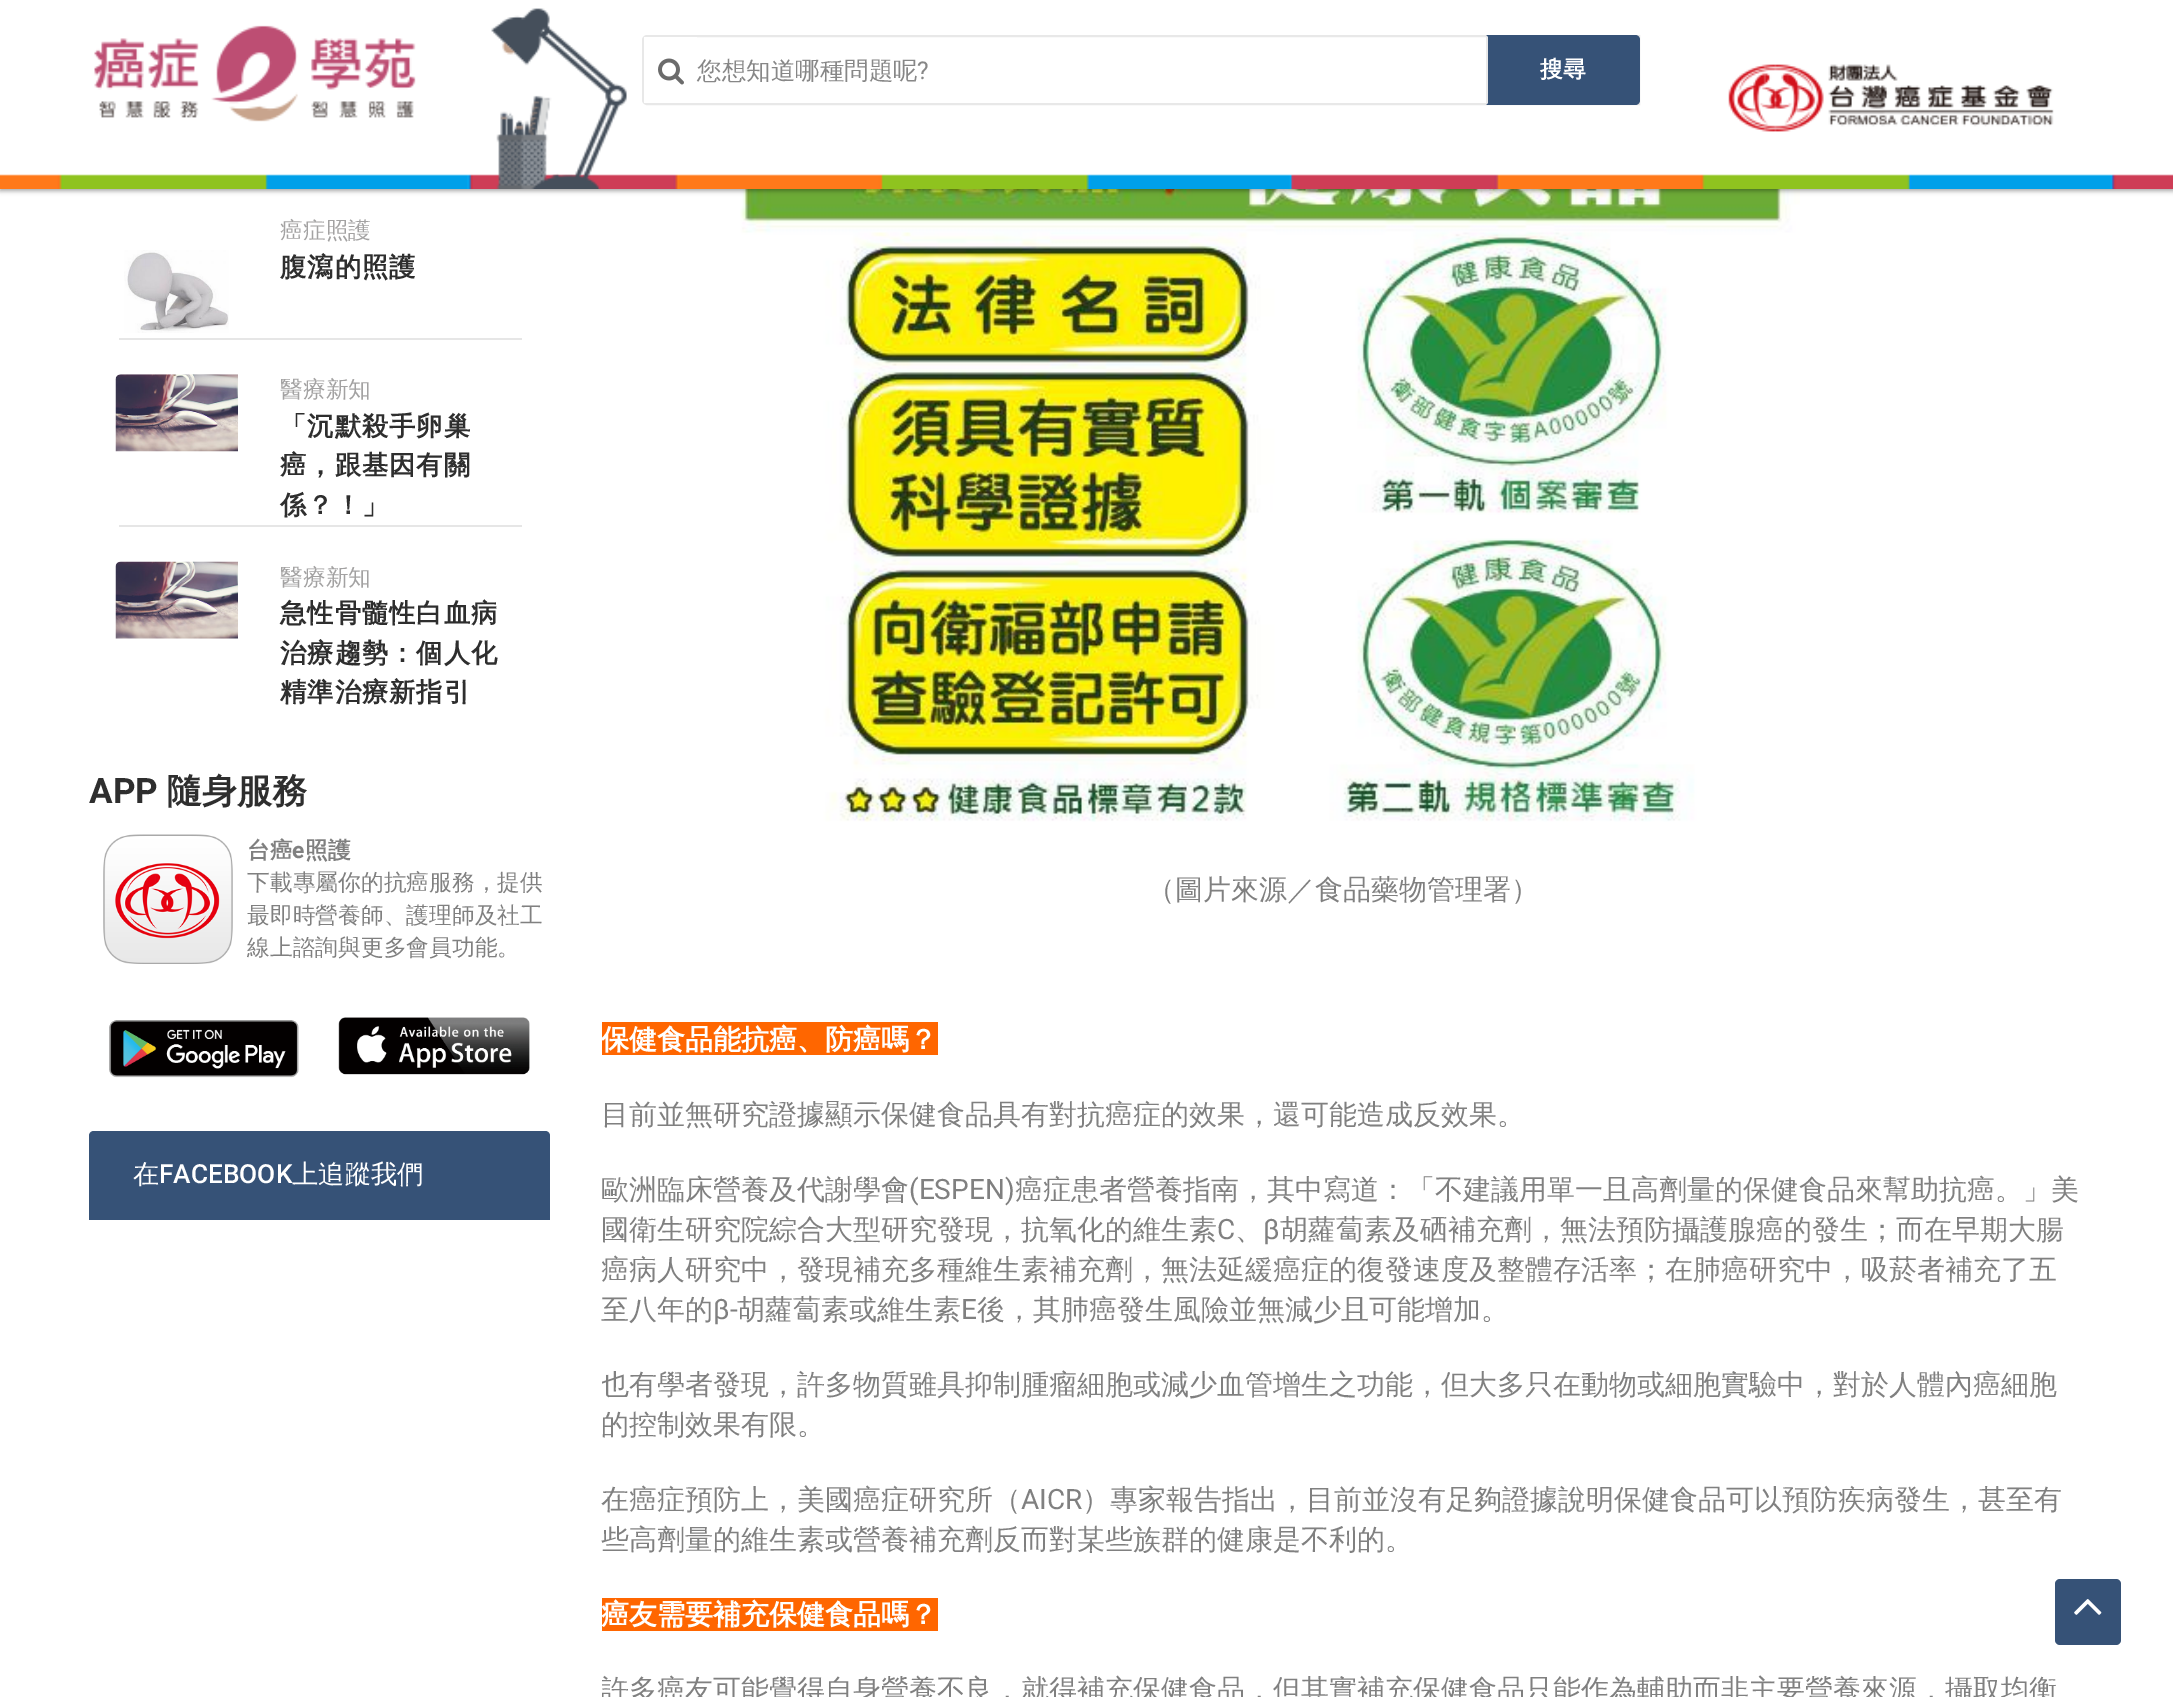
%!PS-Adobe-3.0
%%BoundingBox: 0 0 2173 1697
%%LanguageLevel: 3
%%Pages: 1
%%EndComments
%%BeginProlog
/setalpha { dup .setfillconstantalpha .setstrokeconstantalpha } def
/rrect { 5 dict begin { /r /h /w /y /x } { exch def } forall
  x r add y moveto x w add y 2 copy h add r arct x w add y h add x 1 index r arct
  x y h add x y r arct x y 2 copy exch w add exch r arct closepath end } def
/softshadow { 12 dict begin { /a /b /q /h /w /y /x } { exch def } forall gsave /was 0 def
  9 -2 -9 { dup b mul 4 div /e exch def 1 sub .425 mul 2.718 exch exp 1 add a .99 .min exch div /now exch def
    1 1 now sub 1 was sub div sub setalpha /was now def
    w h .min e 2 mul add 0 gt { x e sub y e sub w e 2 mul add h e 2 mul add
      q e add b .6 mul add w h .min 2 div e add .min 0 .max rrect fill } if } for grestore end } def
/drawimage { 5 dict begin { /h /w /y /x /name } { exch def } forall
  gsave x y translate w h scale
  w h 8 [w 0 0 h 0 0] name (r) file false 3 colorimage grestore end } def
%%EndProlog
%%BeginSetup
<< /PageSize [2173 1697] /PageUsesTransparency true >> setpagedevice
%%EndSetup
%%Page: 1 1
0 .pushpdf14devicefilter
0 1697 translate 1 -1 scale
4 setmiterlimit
1 setgray
0 0 2173 1697 rectfill
(images/12.raw) 740 189 1060 633 drawimage
0 setgray
0 2 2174 189 0 2 0.24 softshadow
0 2 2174 189 0 2.5 0.12 softshadow
1 setgray
0 0 2173 176 rectfill
(images/1.raw) 0 174 2173 15 drawimage
(images/2.raw) 94 25 322 97 drawimage
(images/3.raw) 491 8 136 181 drawimage
0.91 setgray
2 setlinewidth
newpath 647 36 moveto 1639 36 lineto 1639 104 lineto 647 104 lineto 645 104 643 102 643 100 curveto 643 40 lineto 643 38 645 36 647 36 curveto closepath stroke
1 setgray
644 37 53 66 rectfill
(images/4.raw) 658 58 26 27 drawimage
0.212 0.322 0.467 setrgbcolor
newpath 1486 35 moveto 1635 35 lineto 1638 35 1640 37 1640 40 curveto 1640 100 lineto 1640 103 1638 105 1635 105 curveto 1486 105 lineto closepath fill
0.91 setgray
newpath 1486 35 moveto 1486 105 lineto 1488 103 lineto 1488 37 lineto closepath fill
(images/5.raw) 1728 64 326 68 drawimage
0.902 setgray
119 338 403 2 rectfill
(images/6.raw) 124 250 105 83 drawimage
119 525 403 2 rectfill
(images/7.raw) 115 374 123 78 drawimage
(images/8.raw) 115 561 123 78 drawimage
(images/9.raw) 103 834 130 130 drawimage
(images/10.raw) 109 1020 190 58 drawimage
(images/11.raw) 338 1017 192 58 drawimage
0.212 0.322 0.467 setrgbcolor
newpath 94 1131 moveto 545 1131 lineto 548 1131 550 1133 550 1136 curveto 550 1220 lineto 89 1220 lineto 89 1136 lineto 89 1133 91 1131 94 1131 curveto closepath fill
1 0.4 0 setrgbcolor
602 1022 336 33 rectfill
602 1598 336 33 rectfill
0.212 0.322 0.467 setrgbcolor
2055 1579 66 66 5 rrect fill
(images/13.raw) 2074 1599 28 16 drawimage
/WenQuanYiZenHei-Medium [24.5 0 0 -24.5 0 0] selectfont
0.529 setgray
697 79 moveto (您想知道哪種問題呢) show
/Roboto-Regular [24.5 0 0 -24.5 0 0] selectfont
917 79 moveto (?) show
/WenQuanYiZenHei-Bold [22.75 0 0 -22.75 0 0] selectfont
1 setgray
1540 77 moveto (搜尋) show
/WenQuanYiZenHei-Medium [22.75 0 0 -22.75 0 0] selectfont
0.639 0.635 0.635 setrgbcolor
280 238 moveto (癌症照護) show
/WenQuanYiZenHei-Bold [26.25 0 0 -26.25 0 0] selectfont
0.18 setgray
280 276 moveto 1 0 (腹瀉的照護) ashow
/WenQuanYiZenHei-Medium [22.75 0 0 -22.75 0 0] selectfont
0.639 0.635 0.635 setrgbcolor
280 397 moveto (醫療新知) show
/WenQuanYiZenHei-Bold [26.25 0 0 -26.25 0 0] selectfont
0.18 setgray
280 435 moveto 1 0 (「沉默殺手卵巢) ashow
280 474 moveto 1 0 (癌，跟基因有關) ashow
280 514 moveto 1 0 (係？！」) ashow
/WenQuanYiZenHei-Medium [22.75 0 0 -22.75 0 0] selectfont
0.639 0.635 0.635 setrgbcolor
280 585 moveto (醫療新知) show
/WenQuanYiZenHei-Bold [26.25 0 0 -26.25 0 0] selectfont
0.18 setgray
280 622 moveto 1 0 (急性骨髓性白血病) ashow
280 662 moveto 1 0 (治療趨勢：個人化) ashow
280 701 moveto 1 0 (精準治療新指引) ashow
/Roboto-Bold [35 0 0 -35 0 0] selectfont
89 803 moveto (APP) show
/WenQuanYiZenHei-Bold [35 0 0 -35 0 0] selectfont
167 803 moveto (隨身服務) show
/WenQuanYiZenHei-Bold [22.75 0 0 -22.75 0 0] selectfont
0.502 setgray
247 858 moveto (台癌) show
/Roboto-Bold [22.75 0 0 -22.75 0 0] selectfont
292 858 moveto (e) show
/WenQuanYiZenHei-Bold [22.75 0 0 -22.75 0 0] selectfont
305 858 moveto (照護) show
/WenQuanYiZenHei-Medium [22.75 0 0 -22.75 0 0] selectfont
247 890 moveto (下載專屬你的抗癌服務，提供) show
247 923 moveto (最即時營養師、護理師及社工) show
247 955 moveto (線上諮詢與更多會員功能。) show
/WenQuanYiZenHei-Medium [26.25 0 0 -26.25 0 0] selectfont
1 setgray
133 1183 moveto (在) show
/Roboto-Medium [26.25 0 0 -26.25 0 0] selectfont
159 1183 moveto (FACEBOOK) show
/WenQuanYiZenHei-Medium [26.25 0 0 -26.25 0 0] selectfont
292 1183 moveto (上追蹤我們) show
/WenQuanYiZenHei-Medium [28 0 0 -28 0 0] selectfont
0.502 setgray
1147 899 moveto (（圖片來源／食品藥物管理署）) show
/WenQuanYiZenHei-Bold [28 0 0 -28 0 0] selectfont
1 setgray
601 1049 moveto (保健食品能抗癌、防癌嗎？) show
/WenQuanYiZenHei-Medium [28 0 0 -28 0 0] selectfont
0.502 setgray
601 1124 moveto (目前並無研究證據顯示保健食品具有對抗癌症的效果，還可能造成反效果。) show
601 1199 moveto (歐洲臨床營養及代謝學會) show
/Roboto-Regular [28 0 0 -28 0 0] selectfont
909 1199 moveto (\(ESPEN\)) show
/WenQuanYiZenHei-Medium [28 0 0 -28 0 0] selectfont
1015 1199 moveto (癌症患者營養指南，其中寫道：「不建議用單一且高劑量的保健食品來幫助抗癌。」美) show
601 1239 moveto (國衛生研究院綜合大型研究發現，抗氧化的維生素) show
/Roboto-Regular [28 0 0 -28 0 0] selectfont
1217 1239 moveto (C) show
/WenQuanYiZenHei-Medium [28 0 0 -28 0 0] selectfont
1235 1239 moveto (、) show
/Roboto-Regular [28 0 0 -28 0 0] selectfont
1263 1239 moveto (β) show
/WenQuanYiZenHei-Medium [28 0 0 -28 0 0] selectfont
1280 1239 moveto (胡蘿蔔素及硒補充劑，無法預防攝護腺癌的發生；而在早期大腸) show
601 1279 moveto (癌病人研究中，發現補充多種維生素補充劑，無法延緩癌症的復發速度及整體存活率；在肺癌研究中，吸菸者補充了五) show
601 1319 moveto (至八年的) show
/Roboto-Regular [28 0 0 -28 0 0] selectfont
713 1319 moveto (β-) show
/WenQuanYiZenHei-Medium [28 0 0 -28 0 0] selectfont
737 1319 moveto (胡蘿蔔素或維生素) show
/Roboto-Regular [28 0 0 -28 0 0] selectfont
961 1319 moveto (E) show
/WenQuanYiZenHei-Medium [28 0 0 -28 0 0] selectfont
977 1319 moveto (後，其肺癌發生風險並無減少且可能增加。) show
gsave
newpath 607 -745.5 moveto 2079 -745.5 lineto 2082 -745.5 2084 -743 2084 -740 curveto 2084 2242 lineto 2084 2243.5 2082 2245 2079 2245 curveto 607 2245 lineto 604.5 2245 602 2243.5 602 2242 curveto 602 -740 lineto 602 -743 604.5 -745.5 607 -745.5 curveto closepath clip newpath
601 1394 moveto (也有學者發現，許多物質雖具抑制腫瘤細胞或減少血管增生之功能，但大多只在動物或細胞實驗中，對於人體內癌細胞) show
grestore
601 1434 moveto (的控制效果有限。) show
601 1509 moveto (在癌症預防上，美國癌症研究所（) show
/Roboto-Regular [28 0 0 -28 0 0] selectfont
1021 1509 moveto (AICR) show
/WenQuanYiZenHei-Medium [28 0 0 -28 0 0] selectfont
1082 1509 moveto (）專家報告指出，目前並沒有足夠證據說明保健食品可以預防疾病發生，甚至有) show
601 1549 moveto (些高劑量的維生素或營養補充劑反而對某些族群的健康是不利的。) show
/WenQuanYiZenHei-Bold [28 0 0 -28 0 0] selectfont
1 setgray
601 1624 moveto (癌友需要補充保健食品嗎？) show
gsave
newpath 607 -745.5 moveto 2079 -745.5 lineto 2082 -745.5 2084 -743 2084 -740 curveto 2084 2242 lineto 2084 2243.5 2082 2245 2079 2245 curveto 607 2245 lineto 604.5 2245 602 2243.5 602 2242 curveto 602 -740 lineto 602 -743 604.5 -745.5 607 -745.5 curveto closepath clip newpath
/WenQuanYiZenHei-Medium [28 0 0 -28 0 0] selectfont
0.502 setgray
601 1699 moveto (許多癌友可能覺得自身營養不良，就得補充保健食品，但其實補充保健食品只能作為輔助而非主要營養來源，攝取均衡) show
grestore
.poppdf14devicefilter showpage
%%EOF
